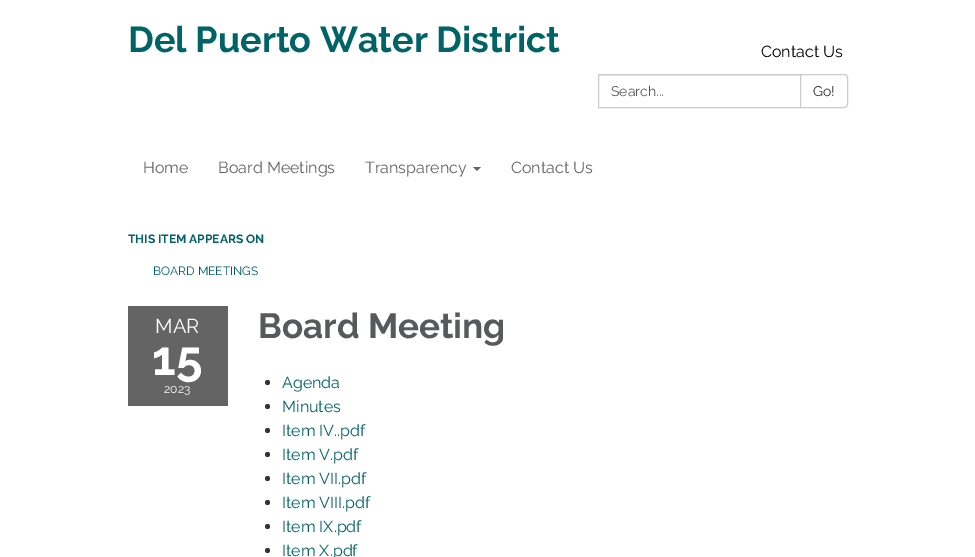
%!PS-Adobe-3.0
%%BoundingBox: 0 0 975 557
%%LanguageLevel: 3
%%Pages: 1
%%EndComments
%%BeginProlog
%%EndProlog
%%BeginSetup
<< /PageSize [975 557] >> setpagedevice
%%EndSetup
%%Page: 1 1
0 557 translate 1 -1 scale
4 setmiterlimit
1 setgray
0 0 975 557 rectfill
0.925 setgray
599 75 201 1 rectfill
0.8 setgray
598.5 74.5 202 33 rectstroke
1 setgray
newpath 800.5 74.5 moveto 844 74.5 lineto 846 74.5 847.5 76 847.5 78 curveto 847.5 104 lineto 847.5 106 846 107.5 844 107.5 curveto 800.5 107.5 lineto closepath gsave fill grestore
0.8 setgray
stroke
0.392 setgray
newpath 473 167 moveto 481 167 lineto 477 171 lineto closepath fill
128 306 100 100 rectfill
0.2 setgray
newpath 267.5 382.5 2.5 0 360 arc closepath fill
newpath 267.5 406.5 2.5 0 360 arc closepath fill
newpath 267.5 430.5 2.5 0 360 arc closepath fill
newpath 267.5 454.5 2.5 0 360 arc closepath fill
newpath 267.5 478.5 2.5 0 360 arc closepath fill
newpath 267.5 502.5 2.5 0 360 arc closepath fill
newpath 267.5 526.5 2.5 0 360 arc closepath fill
newpath 267.5 550.5 2.5 0 360 arc closepath fill
/Raleway-Bold [36 0 0 -36 0 0] selectfont
0 0.392 0.4 setrgbcolor
128 52 moveto (Del Puerto Water District) show
/Raleway-Regular [16 0 0 -16 0 0] selectfont
0 setgray
761 57 moveto (Contact Us) show
/Raleway-Regular [14 0 0 -14 0 0] selectfont
0.345 0.349 0.357 setrgbcolor
611 96 moveto (Search...) show
0.2 setgray
813 96 moveto (Go!) show
/Raleway-Regular [16 0 0 -16 0 0] selectfont
0.392 setgray
143 173 moveto (Home) show
218 173 moveto (Board Meetings) show
365 173 moveto (Transparency) show
511 173 moveto (Contact Us) show
/Raleway-Bold [12 0 0 -12 0 0] selectfont
0 0.392 0.4 setrgbcolor
128 243 moveto (THIS ITEM APPEARS ON) show
/Raleway-Regular [12 0 0 -12 0 0] selectfont
153 275 moveto (BOARD MEETINGS) show
/Raleway-Regular [20 0 0 -20 0 0] selectfont
1 setgray
155 333 moveto (MAR) show
/Raleway-Bold [48 0 0 -48 0 0] selectfont
152 375 moveto (15) show
/Raleway-Regular [12 0 0 -12 0 0] selectfont
164 393 moveto (2023) show
/Raleway-Bold [35 0 0 -35 0 0] selectfont
0.345 0.349 0.357 setrgbcolor
258 338 moveto (Board Meeting) show
/Raleway-Regular [16 0 0 -16 0 0] selectfont
0 0.392 0.4 setrgbcolor
282 388 moveto (Agenda) show
282 412 moveto (Minutes) show
282 436 moveto (Item IV..pdf) show
282 460 moveto (Item V.pdf) show
282 484 moveto (Item VII.pdf) show
282 508 moveto (Item VIII.pdf) show
282 532 moveto (Item IX.pdf) show
282 556 moveto (Item X.pdf) show
showpage
%%EOF
